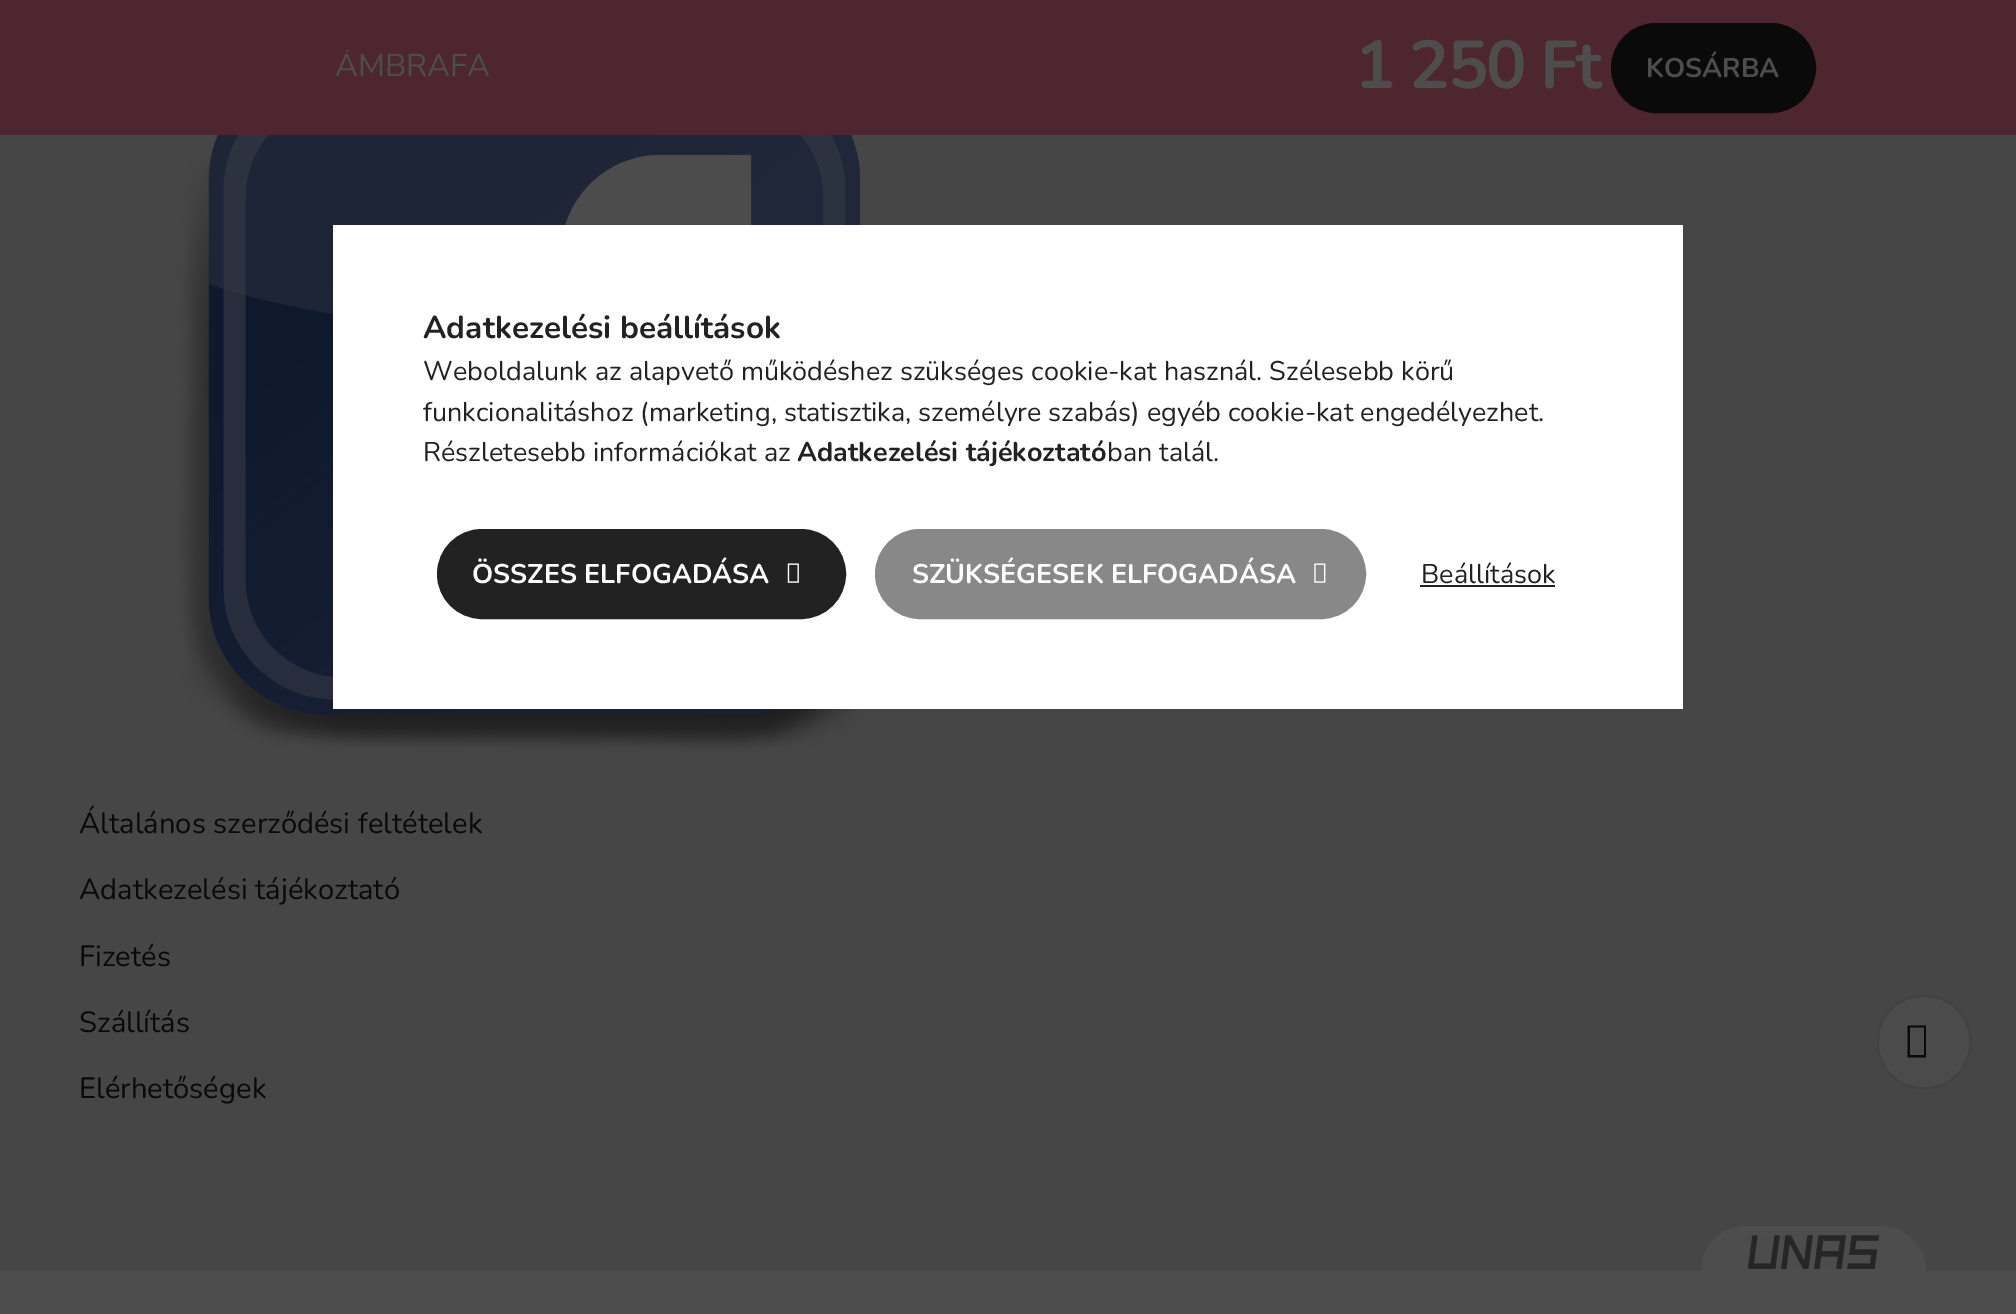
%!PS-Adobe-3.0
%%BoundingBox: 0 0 2016 1314
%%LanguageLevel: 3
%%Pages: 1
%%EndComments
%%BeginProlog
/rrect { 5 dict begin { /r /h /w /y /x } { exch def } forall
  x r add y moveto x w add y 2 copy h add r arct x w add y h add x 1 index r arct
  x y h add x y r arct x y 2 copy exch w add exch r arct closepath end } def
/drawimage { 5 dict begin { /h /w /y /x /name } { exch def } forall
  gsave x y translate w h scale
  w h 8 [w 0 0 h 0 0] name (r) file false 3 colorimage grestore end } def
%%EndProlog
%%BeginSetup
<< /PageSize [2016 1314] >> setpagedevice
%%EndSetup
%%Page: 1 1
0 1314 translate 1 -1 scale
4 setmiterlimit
0.302 setgray
0 0 2016 1314 rectfill
0.302 0.149 0.184 setrgbcolor
0 0 2016 135 rectfill
0.039 setgray
1612 24 203 88 44 rrect gsave fill grestore
2 setlinewidth
stroke
0.275 setgray
0 135 2016 1136 rectfill
(images/1.raw) 176 135 688 618 drawimage
0.302 setgray
1701 1226 225 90 45 rrect fill
(images/2.raw) 1747 1235 133 34 drawimage
1 setgray
333 225 1350 484 rectfill
0.133 setgray
438 530 407 88 44 rrect gsave fill grestore
stroke
(images/3.raw) 787 563 12 20 drawimage
0.533 setgray
876 530 489 88 44 rrect gsave fill grestore
stroke
(images/4.raw) 1314 563 12 20 drawimage
0.133 setgray
1420 585 135 2 rectfill
0.294 setgray
1878 996 92 92 44 rrect gsave fill grestore
0.259 setgray
stroke
0.039 setgray
newpath 1907.5 1057.5 moveto 1907.5 1025.5 lineto 1926 1025.5 lineto 1926 1057.5 lineto closepath 1910 1055 moveto 1924 1055 lineto 1924 1027.5 lineto 1910 1027.5 lineto closepath fill
gsave
335 50 156 36 rectclip
/Nunito-Regular [31.5 0 0 -31.5 0 0] selectfont
0.302 setgray
335 76 moveto (ÁMBRAFA) show
grestore
/Nunito-Bold [67.5 0 0 -67.5 0 0] selectfont
0.302 setgray
1355 88 moveto -2.25 0 (1 250 Ft) ashow
/Nunito-Bold [27 0 0 -27 0 0] selectfont
1646 77 moveto (KOSÁRBA) show
/Nunito-Regular [29.25 0 0 -29.25 0 0] selectfont
0.039 setgray
79 833 moveto (Általános szerződési feltételek) show
79 899 moveto (Adatkezelési tájékoztató) show
79 966 moveto (Fizetés) show
79 1032 moveto (Szállítás) show
79 1098 moveto (Elérhetőségek) show
/Nunito-Bold [31.5 0 0 -31.5 0 0] selectfont
0.133 setgray
423 338 moveto (Adatkezelési beállítások) show
/Nunito-Regular [27 0 0 -27 0 0] selectfont
423 380 moveto (Weboldalunk az alapvető működéshez szükséges cookie-kat használ. Szélesebb körű) show
423 421 moveto (funkcionalitáshoz \(marketing, statisztika, személyre szabás\) egyéb cookie-kat engedélyezhet.) show
423 461 moveto (Részletesebb információkat az) show
/Nunito-Bold [27 0 0 -27 0 0] selectfont
797 461 moveto (Adatkezelési tájékoztató) show
/Nunito-Regular [27 0 0 -27 0 0] selectfont
1107 461 moveto (ban talál.) show
/Nunito-Bold [27 0 0 -27 0 0] selectfont
1 setgray
472 583 moveto (ÖSSZES ELFOGADÁSA) show
912 583 moveto (SZÜKSÉGESEK ELFOGADÁSA) show
/Nunito-Regular [27 0 0 -27 0 0] selectfont
0.133 setgray
1421 583 moveto (Beállítások) show
showpage
%%EOF
